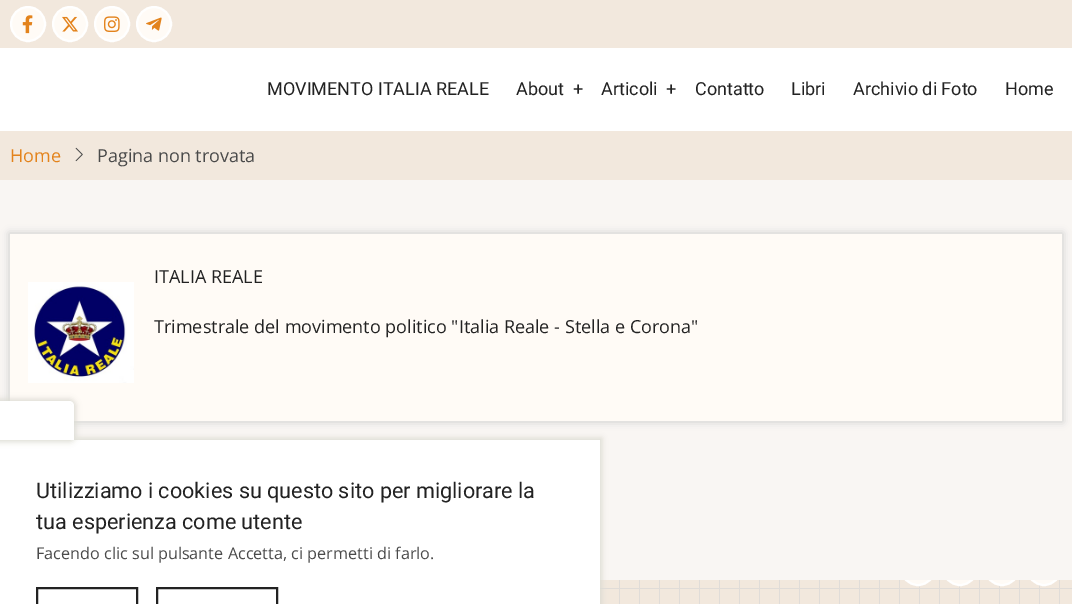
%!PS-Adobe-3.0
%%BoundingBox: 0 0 1072 604
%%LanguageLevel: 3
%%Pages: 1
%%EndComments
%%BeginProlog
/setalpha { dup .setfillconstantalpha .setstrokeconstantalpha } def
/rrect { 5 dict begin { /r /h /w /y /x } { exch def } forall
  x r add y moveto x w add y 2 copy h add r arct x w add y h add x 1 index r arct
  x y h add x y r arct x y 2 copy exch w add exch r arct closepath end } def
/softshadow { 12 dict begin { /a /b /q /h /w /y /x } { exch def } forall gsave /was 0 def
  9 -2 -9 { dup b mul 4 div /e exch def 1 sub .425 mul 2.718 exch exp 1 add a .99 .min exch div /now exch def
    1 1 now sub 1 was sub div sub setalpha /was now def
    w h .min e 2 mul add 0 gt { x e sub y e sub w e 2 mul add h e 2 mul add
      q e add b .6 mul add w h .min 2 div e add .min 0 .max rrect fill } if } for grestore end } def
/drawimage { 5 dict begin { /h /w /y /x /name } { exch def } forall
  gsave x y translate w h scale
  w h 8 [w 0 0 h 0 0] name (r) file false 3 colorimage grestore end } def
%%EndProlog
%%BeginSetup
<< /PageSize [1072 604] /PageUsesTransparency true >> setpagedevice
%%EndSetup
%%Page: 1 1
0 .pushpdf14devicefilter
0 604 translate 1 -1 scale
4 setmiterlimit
0.949 0.91 0.867 setrgbcolor
0 0 1072 604 rectfill
1 0.984 0.965 setrgbcolor
newpath 28 24 17 0 360 arc closepath gsave fill grestore
1 setgray
2 setlinewidth
stroke
(images/1.raw) 22 15 11 19 drawimage
1 0.984 0.965 setrgbcolor
newpath 70 24 17 0 360 arc closepath gsave fill grestore
1 setgray
stroke
(images/2.raw) 62 16 16 16 drawimage
1 0.984 0.965 setrgbcolor
newpath 112 24 17 0 360 arc closepath gsave fill grestore
1 setgray
stroke
(images/3.raw) 104 16 16 16 drawimage
1 0.984 0.965 setrgbcolor
newpath 154 24 17 0 360 arc closepath gsave fill grestore
1 setgray
stroke
(images/4.raw) 146 17 16 14 drawimage
0 48 1072 83 rectfill
(images/5.raw) 75 147 8 15 drawimage
(images/7.raw) 600 580 472 24 drawimage
1 0.984 0.965 setrgbcolor
newpath 918 568 17 0 360 arc closepath gsave fill grestore
1 setgray
stroke
1 0.984 0.965 setrgbcolor
newpath 960 568 17 0 360 arc closepath gsave fill grestore
1 setgray
stroke
1 0.984 0.965 setrgbcolor
newpath 1002 568 17 0 360 arc closepath gsave fill grestore
1 setgray
stroke
1 0.984 0.965 setrgbcolor
newpath 1044 568 17 0 360 arc closepath gsave fill grestore
1 setgray
stroke
0.976 0.965 0.953 setrgbcolor
0 180 1072 400 rectfill
0.8 setgray
9 233 1054 189 0 4 1 softshadow
1 0.984 0.965 setrgbcolor
10 234 1052 187 rectfill
(images/6.raw) 28 282 106 101 drawimage
0.859 0.859 0.827 setrgbcolor
-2 438 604 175 0 3 1 softshadow
1 setgray
0 440 600 164 rectfill
0.859 0.859 0.827 setrgbcolor
-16 399 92 43 7 3 1 softshadow
1 setgray
newpath 0 403 moveto 69 403 lineto 70.5 403 72 404.5 72 406 curveto 72 440 lineto -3 440 lineto -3 406 lineto -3 404.5 -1.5 403 0 403 curveto closepath fill
newpath -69 401 moveto 69 401 lineto 72 401 74 403 74 406 curveto 74 440 lineto -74 440 lineto -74 406 lineto -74 403 -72 401 -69 401 curveto closepath -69 403 moveto 69 403 lineto 71 403 72 405 72 406 curveto 72 440 lineto -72 440 lineto -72 406 lineto -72 405 -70 403 -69 403 curveto closepath eofill
0.133 setgray
37 588 100 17 rectstroke
157 588 120 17 rectstroke
/Roboto-Regular [18 0 0 -18 0 0] selectfont
267 95 moveto (MOVIMENTO ITALIA REALE) show
516 95 moveto (About) show
573 95 moveto (+) show
601 95 moveto (Articoli) show
666 95 moveto (+) show
695 95 moveto (Contatto) show
791 95 moveto (Libri) show
853 95 moveto (Archivio di Foto) show
1005 95 moveto (Home) show
/OpenSans-Regular [18 0 0 -18 0 0] selectfont
0.89 0.514 0.11 setrgbcolor
10 162 moveto (Home) show
0.29 setgray
97 162 moveto (Pagina non trovata) show
0.133 setgray
154 283 moveto (ITALIA REALE) show
154 333 moveto (Trimestrale del movimento politico "Italia Reale - Stella e Corona") show
/Roboto-Regular [21.6 0 0 -21.6 0 0] selectfont
36 498 moveto (Utilizziamo i cookies su questo sito per migliorare la) show
36 529 moveto (tua esperienza come utente) show
/OpenSans-Regular [16.2 0 0 -16.2 0 0] selectfont
0.29 setgray
36 559 moveto (Facendo clic sul pulsante Accetta, ci permetti di farlo.) show
.poppdf14devicefilter showpage
%%EOF
